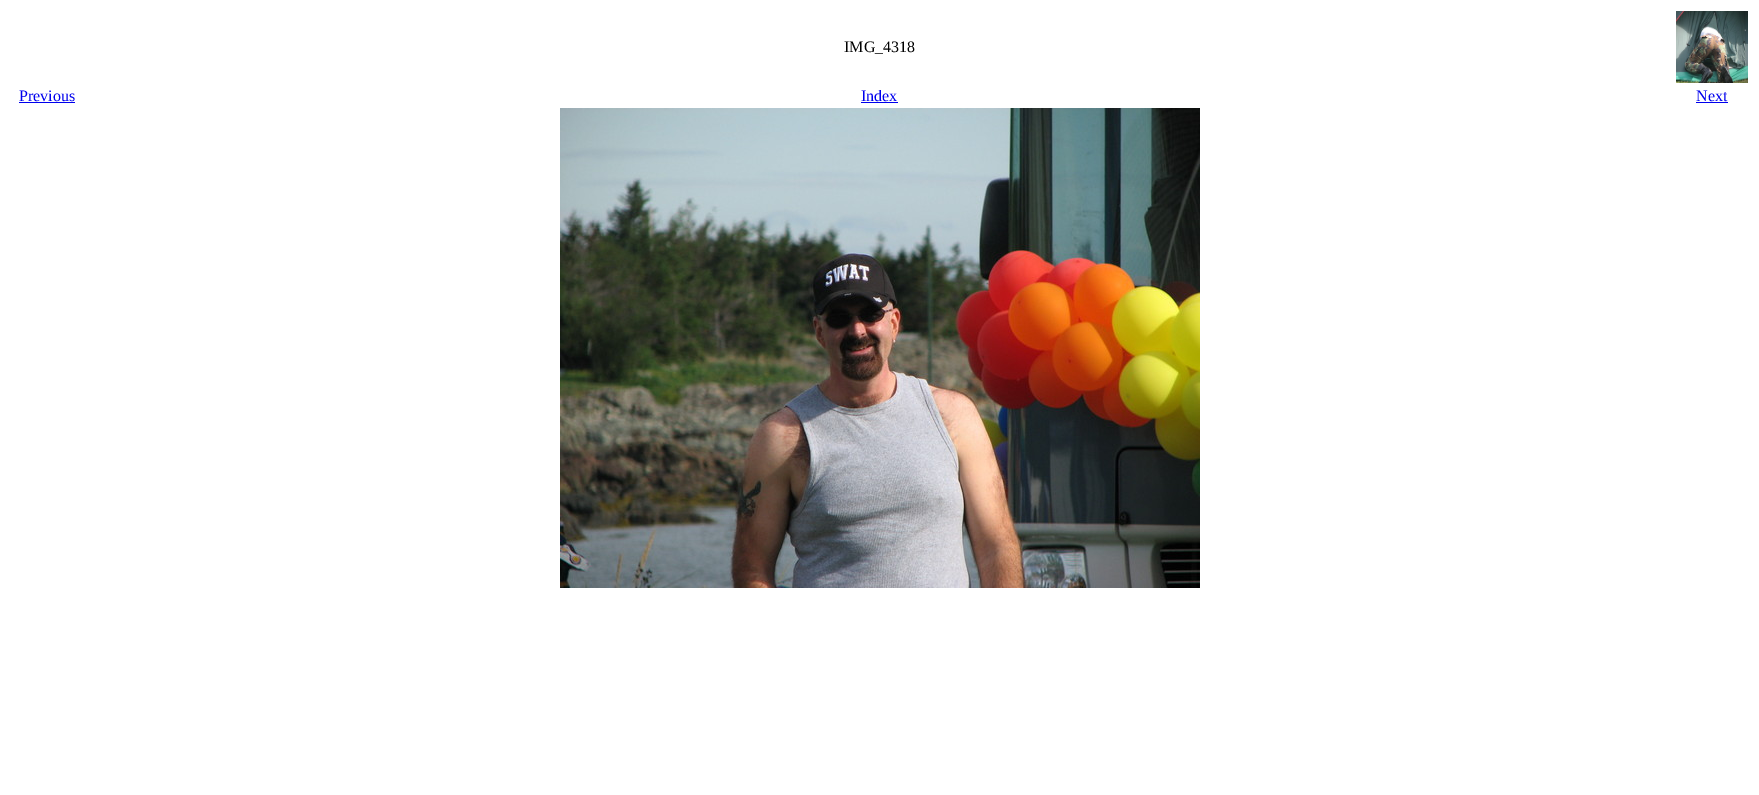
%!PS-Adobe-3.0
%%BoundingBox: 0 0 1759 795
%%LanguageLevel: 3
%%Pages: 1
%%EndComments
%%BeginProlog
/drawimage { 5 dict begin { /h /w /y /x /name } { exch def } forall
  gsave x y translate w h scale
  w h 8 [w 0 0 h 0 0] name (r) file false 3 colorimage grestore end } def
%%EndProlog
%%BeginSetup
<< /PageSize [1759 795] >> setpagedevice
%%EndSetup
%%Page: 1 1
0 795 translate 1 -1 scale
4 setmiterlimit
1 setgray
0 0 1759 795 rectfill
(images/1.raw) 1676 11 72 72 drawimage
0 0 0.933 setrgbcolor
19 102 56 1 rectfill
861 102 37 1 rectfill
1696 102 32 1 rectfill
(images/2.raw) 560 108 640 480 drawimage
/LiberationSerif-Regular [16 0 0 -16 0 0] selectfont
0 setgray
844 52 moveto (IMG_4318) show
0 0 0.933 setrgbcolor
19 101 moveto (Previous) show
861 101 moveto (Index) show
1696 101 moveto (Next) show
showpage
%%EOF
